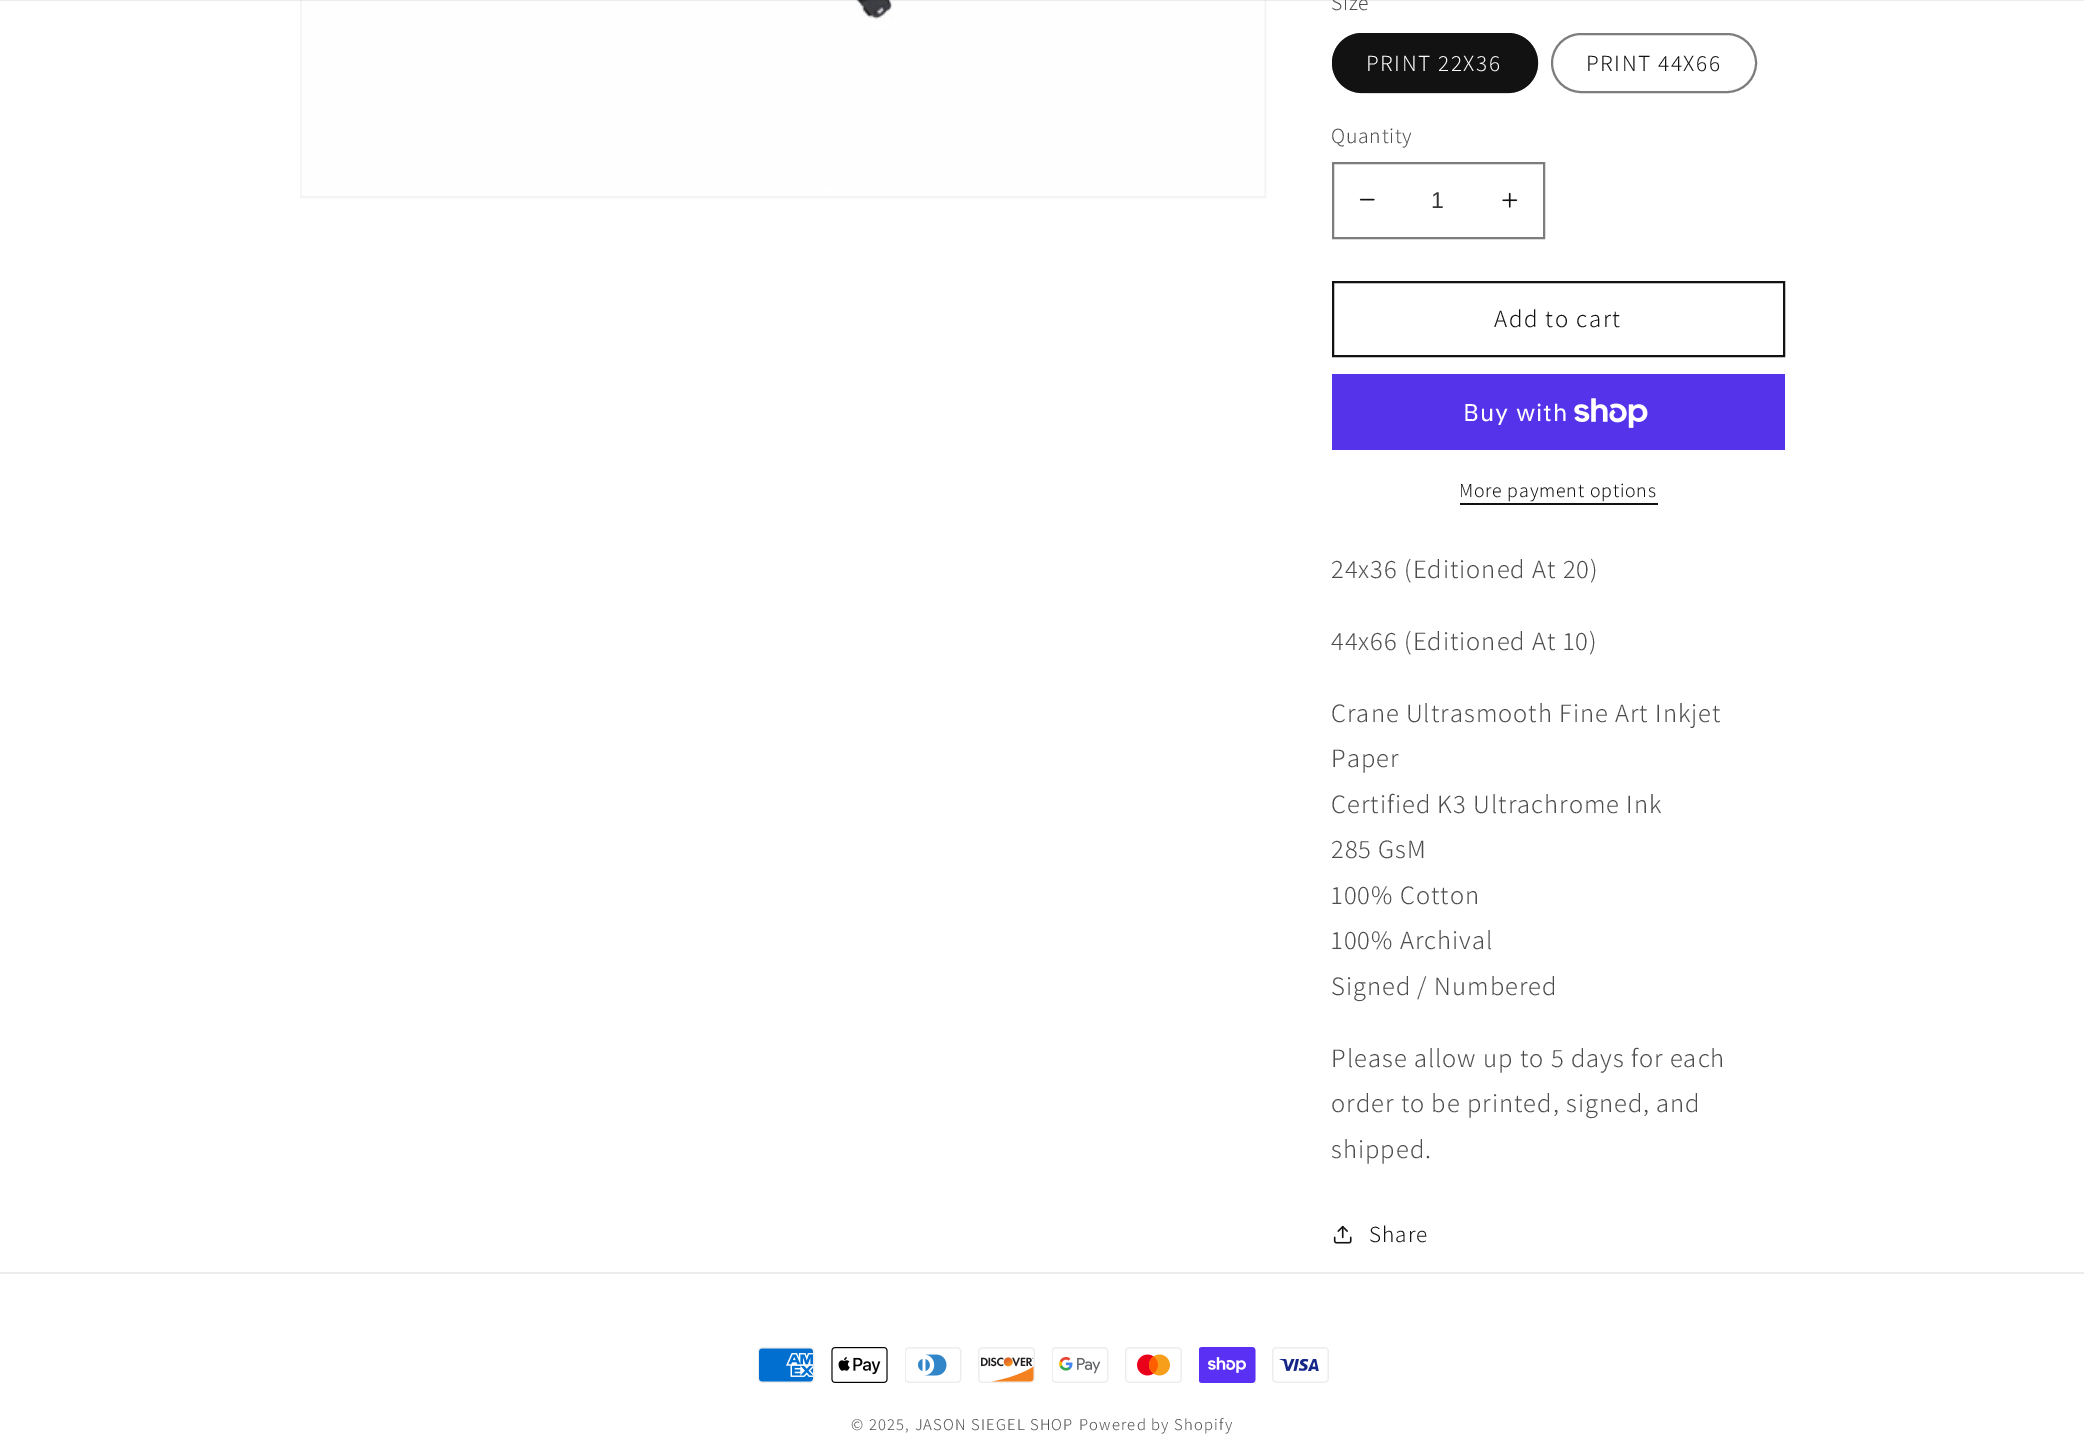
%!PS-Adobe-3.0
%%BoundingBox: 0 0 2084 1440
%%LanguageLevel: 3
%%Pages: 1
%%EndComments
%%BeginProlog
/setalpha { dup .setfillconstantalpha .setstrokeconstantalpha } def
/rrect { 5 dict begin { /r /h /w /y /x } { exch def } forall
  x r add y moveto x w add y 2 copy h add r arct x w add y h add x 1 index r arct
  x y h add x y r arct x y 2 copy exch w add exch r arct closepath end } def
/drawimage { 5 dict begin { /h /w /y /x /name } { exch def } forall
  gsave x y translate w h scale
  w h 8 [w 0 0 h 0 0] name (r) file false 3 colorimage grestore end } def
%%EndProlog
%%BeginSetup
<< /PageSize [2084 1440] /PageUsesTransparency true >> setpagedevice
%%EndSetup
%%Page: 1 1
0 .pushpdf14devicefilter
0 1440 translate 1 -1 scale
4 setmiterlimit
1 setgray
0 0 2084 1440 rectfill
0.953 setgray
2 setlinewidth
301 -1 964 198 rectstroke
(images/1.raw) 301 0 964 196 drawimage
0.08 setalpha
0.071 setgray
0 0 2084 1 rectfill
1 setalpha
1332 33 206 60 30 rrect fill
0.55 setalpha
1333 34 204 58 29 rrect stroke
1 setalpha
0.49 setgray
1552 34 204 58 29 rrect stroke
(images/2.raw) 1359 198 16 3 drawimage
(images/3.raw) 1502 192 16 16 drawimage
1333 163 211 75 rectstroke
0.071 setgray
1333 282 451 74 rectstroke
0.329 0.2 0.922 setrgbcolor
1332 374 453 76 rectfill
(images/4.raw) 1574 398 74 30 drawimage
0.071 setgray
1460 503 198 2 rectfill
(images/5.raw) 1333 1225 19 19 drawimage
0.925 setgray
0 1272 2084 2 rectfill
(images/6.raw) 758 1347 57 36 drawimage
(images/7.raw) 831 1347 57 36 drawimage
(images/8.raw) 905 1347 57 36 drawimage
(images/9.raw) 978 1347 57 36 drawimage
(images/10.raw) 1052 1347 57 36 drawimage
(images/11.raw) 1125 1347 57 36 drawimage
(images/12.raw) 1199 1347 57 36 drawimage
(images/13.raw) 1272 1347 57 36 drawimage
/Assistant-Light [21.5 0 0 -21.5 0 0] selectfont
0.302 setgray
1331 10 moveto 0.75 0 (Size) ashow
/Assistant-Light [23 0 0 -23 0 0] selectfont
1 setgray
1366 71 moveto 1.6 0 (PRINT 22X36) ashow
0.071 setgray
1586 71 moveto 1.6 0 (PRINT 44X66) ashow
/Assistant-Light [21.5 0 0 -21.5 0 0] selectfont
0.302 setgray
1331 143 moveto 0.75 0 (Quantity) ashow
/LiberationSans-Regular [23 0 0 -23 0 0] selectfont
0.212 setgray
1431 208 moveto (1) show
/Assistant-Light [24.75 0 0 -24.75 0 0] selectfont
0.071 setgray
1494 327 moveto 1.6 0 (Add to cart) ashow
/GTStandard-Regular [24 0 0 -24 0 0] selectfont
1 setgray
1463 421 moveto 1 0 (Buy with) ashow
/Assistant-Light [19.75 0 0 -19.75 0 0] selectfont
0.071 setgray
1459 497 moveto 0.8 0 (More payment options) ashow
/Assistant-Light [26.4 0 0 -26.4 0 0] selectfont
0.302 setgray
1331 578 moveto 1 0 (24x36 \(Editioned At 20\)) ashow
1331 650 moveto 1 0 (44x66 \(Editioned At 10\)) ashow
1331 722 moveto 1 0 (Crane Ultrasmooth Fine Art Inkjet) ashow
1331 767 moveto 1 0 (Paper) ashow
1331 813 moveto 1 0 (Certified K3 Ultrachrome Ink) ashow
1331 858 moveto 1 0 (285 GsM) ashow
1331 904 moveto 1 0 (100% Cotton) ashow
1331 949 moveto 1 0 (100% Archival) ashow
1331 995 moveto 1 0 (Signed / Numbered) ashow
1331 1067 moveto 1 0 (Please allow up to 5 days for each) ashow
1331 1112 moveto 1 0 (order to be printed, signed, and) ashow
1331 1158 moveto 1 0 (shipped.) ashow
/Assistant-Light [23 0 0 -23 0 0] selectfont
0.071 setgray
1369 1242 moveto 1 0 (Share) ashow
/Assistant-Light [16.5 0 0 -16.5 0 0] selectfont
0.302 setgray
851 1430 moveto 1.15 0 (© 2025, JASON SIEGEL SHOP) ashow
1079 1430 moveto 1.15 0 (Powered by Shopify) ashow
.poppdf14devicefilter showpage
%%EOF
